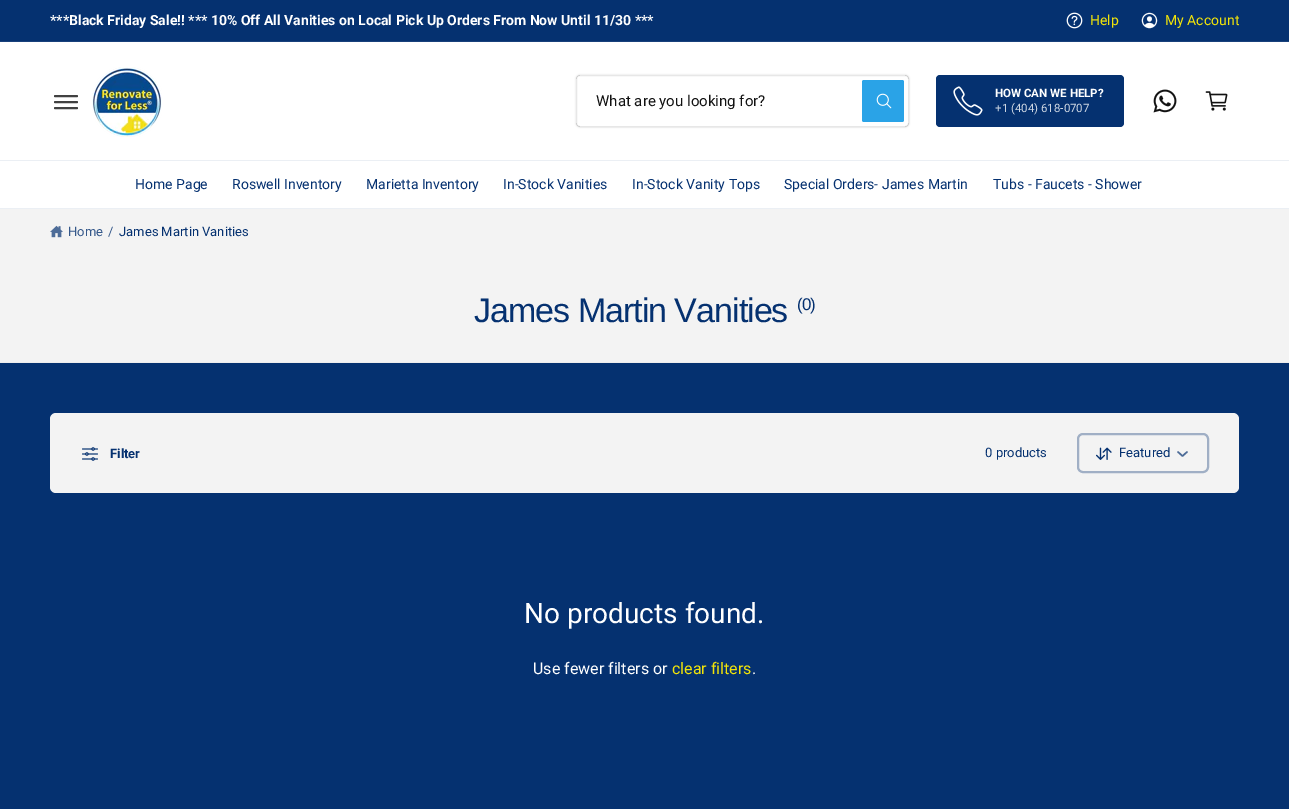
%!PS-Adobe-3.0
%%BoundingBox: 0 0 1289 809
%%LanguageLevel: 3
%%Pages: 1
%%EndComments
%%BeginProlog
/setalpha { dup .setfillconstantalpha .setstrokeconstantalpha } def
/rrect { 5 dict begin { /r /h /w /y /x } { exch def } forall
  x r add y moveto x w add y 2 copy h add r arct x w add y h add x 1 index r arct
  x y h add x y r arct x y 2 copy exch w add exch r arct closepath end } def
/softshadow { 12 dict begin { /a /b /q /h /w /y /x } { exch def } forall gsave /was 0 def
  9 -2 -9 { dup b mul 4 div /e exch def 1 sub .425 mul 2.718 exch exp 1 add a .99 .min exch div /now exch def
    1 1 now sub 1 was sub div sub setalpha /was now def
    w h .min e 2 mul add 0 gt { x e sub y e sub w e 2 mul add h e 2 mul add
      q e add b .6 mul add w h .min 2 div e add .min 0 .max rrect fill } if } for grestore end } def
/drawimage { 5 dict begin { /h /w /y /x /name } { exch def } forall
  gsave x y translate w h scale
  w h 8 [w 0 0 h 0 0] name (r) file false 3 colorimage grestore end } def
%%EndProlog
%%BeginSetup
<< /PageSize [1289 809] /PageUsesTransparency true >> setpagedevice
%%EndSetup
%%Page: 1 1
0 .pushpdf14devicefilter
0 809 translate 1 -1 scale
4 setmiterlimit
0.02 0.192 0.439 setrgbcolor
0 0 1289 809 rectfill
0.098 0.255 0.482 setrgbcolor
0 41 1289 1 rectfill
(images/1.raw) 1066 12 17 17 drawimage
(images/2.raw) 1141 12 17 17 drawimage
1 setgray
0 42 1289 166 rectfill
0.255 setgray
2 setlinewidth
1 setlinecap
newpath 55 96 moveto 77 96 lineto 55 102 moveto 77 102 lineto 55 108 moveto 77 108 lineto stroke
(images/3.raw) 92 67 70 70 drawimage
0.165 0.639 0.906 setrgbcolor
862 80 42 42 2 rrect fill
(images/4.raw) 876 93 16 16 drawimage
gsave
newpath 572 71 moveto 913 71 lineto 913 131 lineto 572 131 lineto closepath 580 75 moveto 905 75 lineto 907 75 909 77 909 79 curveto 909 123 lineto 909 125 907 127 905 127 curveto 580 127 lineto 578 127 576 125 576 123 curveto 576 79 lineto 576 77 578 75 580 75 curveto closepath eoclip newpath
0 setgray
576 75 333 52 4 1 0.15 softshadow
grestore
0.1 setalpha
0.071 setgray
1 setlinewidth
0 setlinecap
576.5 75.5 332 51 3.5 rrect stroke
1 setalpha
0.02 0.192 0.439 setrgbcolor
936 75 188 52 4 rrect fill
(images/5.raw) 953 86 30 30 drawimage
(images/6.raw) 1153 89 24 24 drawimage
(images/7.raw) 1205 91 23 20 drawimage
0.922 0.937 0.957 setrgbcolor
0 160 1289 1 rectfill
0 208 1289 1 rectfill
0.953 setgray
0 209 1289 153 rectfill
(images/8.raw) 50 225 13 13 drawimage
0.929 setgray
0 362 1289 1 rectfill
0.953 setgray
50 413 1189 80 6 rrect fill
(images/9.raw) 82 447 16 14 drawimage
(images/10.raw) 1096 447 16 13 drawimage
0.298 0.42 0.592 setrgbcolor
1.5 setlinewidth
1 setlinecap
1 setlinejoin
newpath 1178 452 moveto 1182.5 456 lineto 1187 452 lineto stroke
0.627 0.686 0.773 setrgbcolor
2 setlinewidth
0 setlinecap
0 setlinejoin
1078 434 130 38 5 rrect stroke
/Roboto-Bold [14 0 0 -14 0 0] selectfont
1 setgray
50 25 moveto (***Black Friday Sale!! *** 10% Off All Vanities on Local Pick Up Orders From Now Until 11/30 ***) show
/Roboto-Regular [14 0 0 -14 0 0] selectfont
0.945 0.89 0.035 setrgbcolor
1090 25 moveto (Help) show
1165 25 moveto (My Account) show
/Roboto-Regular [15 0 0 -15 0 0] selectfont
0.071 setgray
596 106 moveto (What are you looking for?) show
/Roboto-Bold [11.5 0 0 -11.5 0 0] selectfont
1 setgray
995 97 moveto (HOW CAN WE HELP?) show
/Roboto-Regular [11.5 0 0 -11.5 0 0] selectfont
0.804 0.839 0.886 setrgbcolor
995 112 moveto (+1 \(404\) 618-0707) show
/Roboto-Regular [14 0 0 -14 0 0] selectfont
0.02 0.192 0.439 setrgbcolor
135 189 moveto (Home Page) show
232 189 moveto (Roswell Inventory) show
366 189 moveto (Marietta Inventory) show
503 189 moveto (In-Stock Vanities) show
632 189 moveto (In-Stock Vanity Tops) show
784 189 moveto (Special Orders- James Martin) show
993 189 moveto (Tubs - Faucets - Shower) show
/Roboto-Regular [13 0 0 -13 0 0] selectfont
0.208 0.345 0.541 setrgbcolor
68 236 moveto (Home) show
108 236 moveto (/) show
0.02 0.192 0.439 setrgbcolor
119 236 moveto (James Martin Vanities) show
/LiberationSans-Regular [34 0 0 -34 0 0] selectfont
474 322 moveto -1 0 (James Martin Vanities) ashow
/LiberationSans-Regular [17 0 0 -17 0 0] selectfont
797 310 moveto -1 0 (\(0\)) ashow
/Roboto-Bold [13 0 0 -13 0 0] selectfont
110 458 moveto (Filter) show
/Roboto-Regular [13 0 0 -13 0 0] selectfont
985 457 moveto (0 products) show
1119 457 moveto (Featured) show
/Roboto-Regular [28 0 0 -28 0 0] selectfont
1 setgray
524 623 moveto (No products found.) show
/Roboto-Regular [16 0 0 -16 0 0] selectfont
533 674 moveto (Use fewer filters or) show
0.945 0.89 0.035 setrgbcolor
672 674 moveto (clear filters) show
1 setgray
752 674 moveto (.) show
.poppdf14devicefilter showpage
%%EOF
